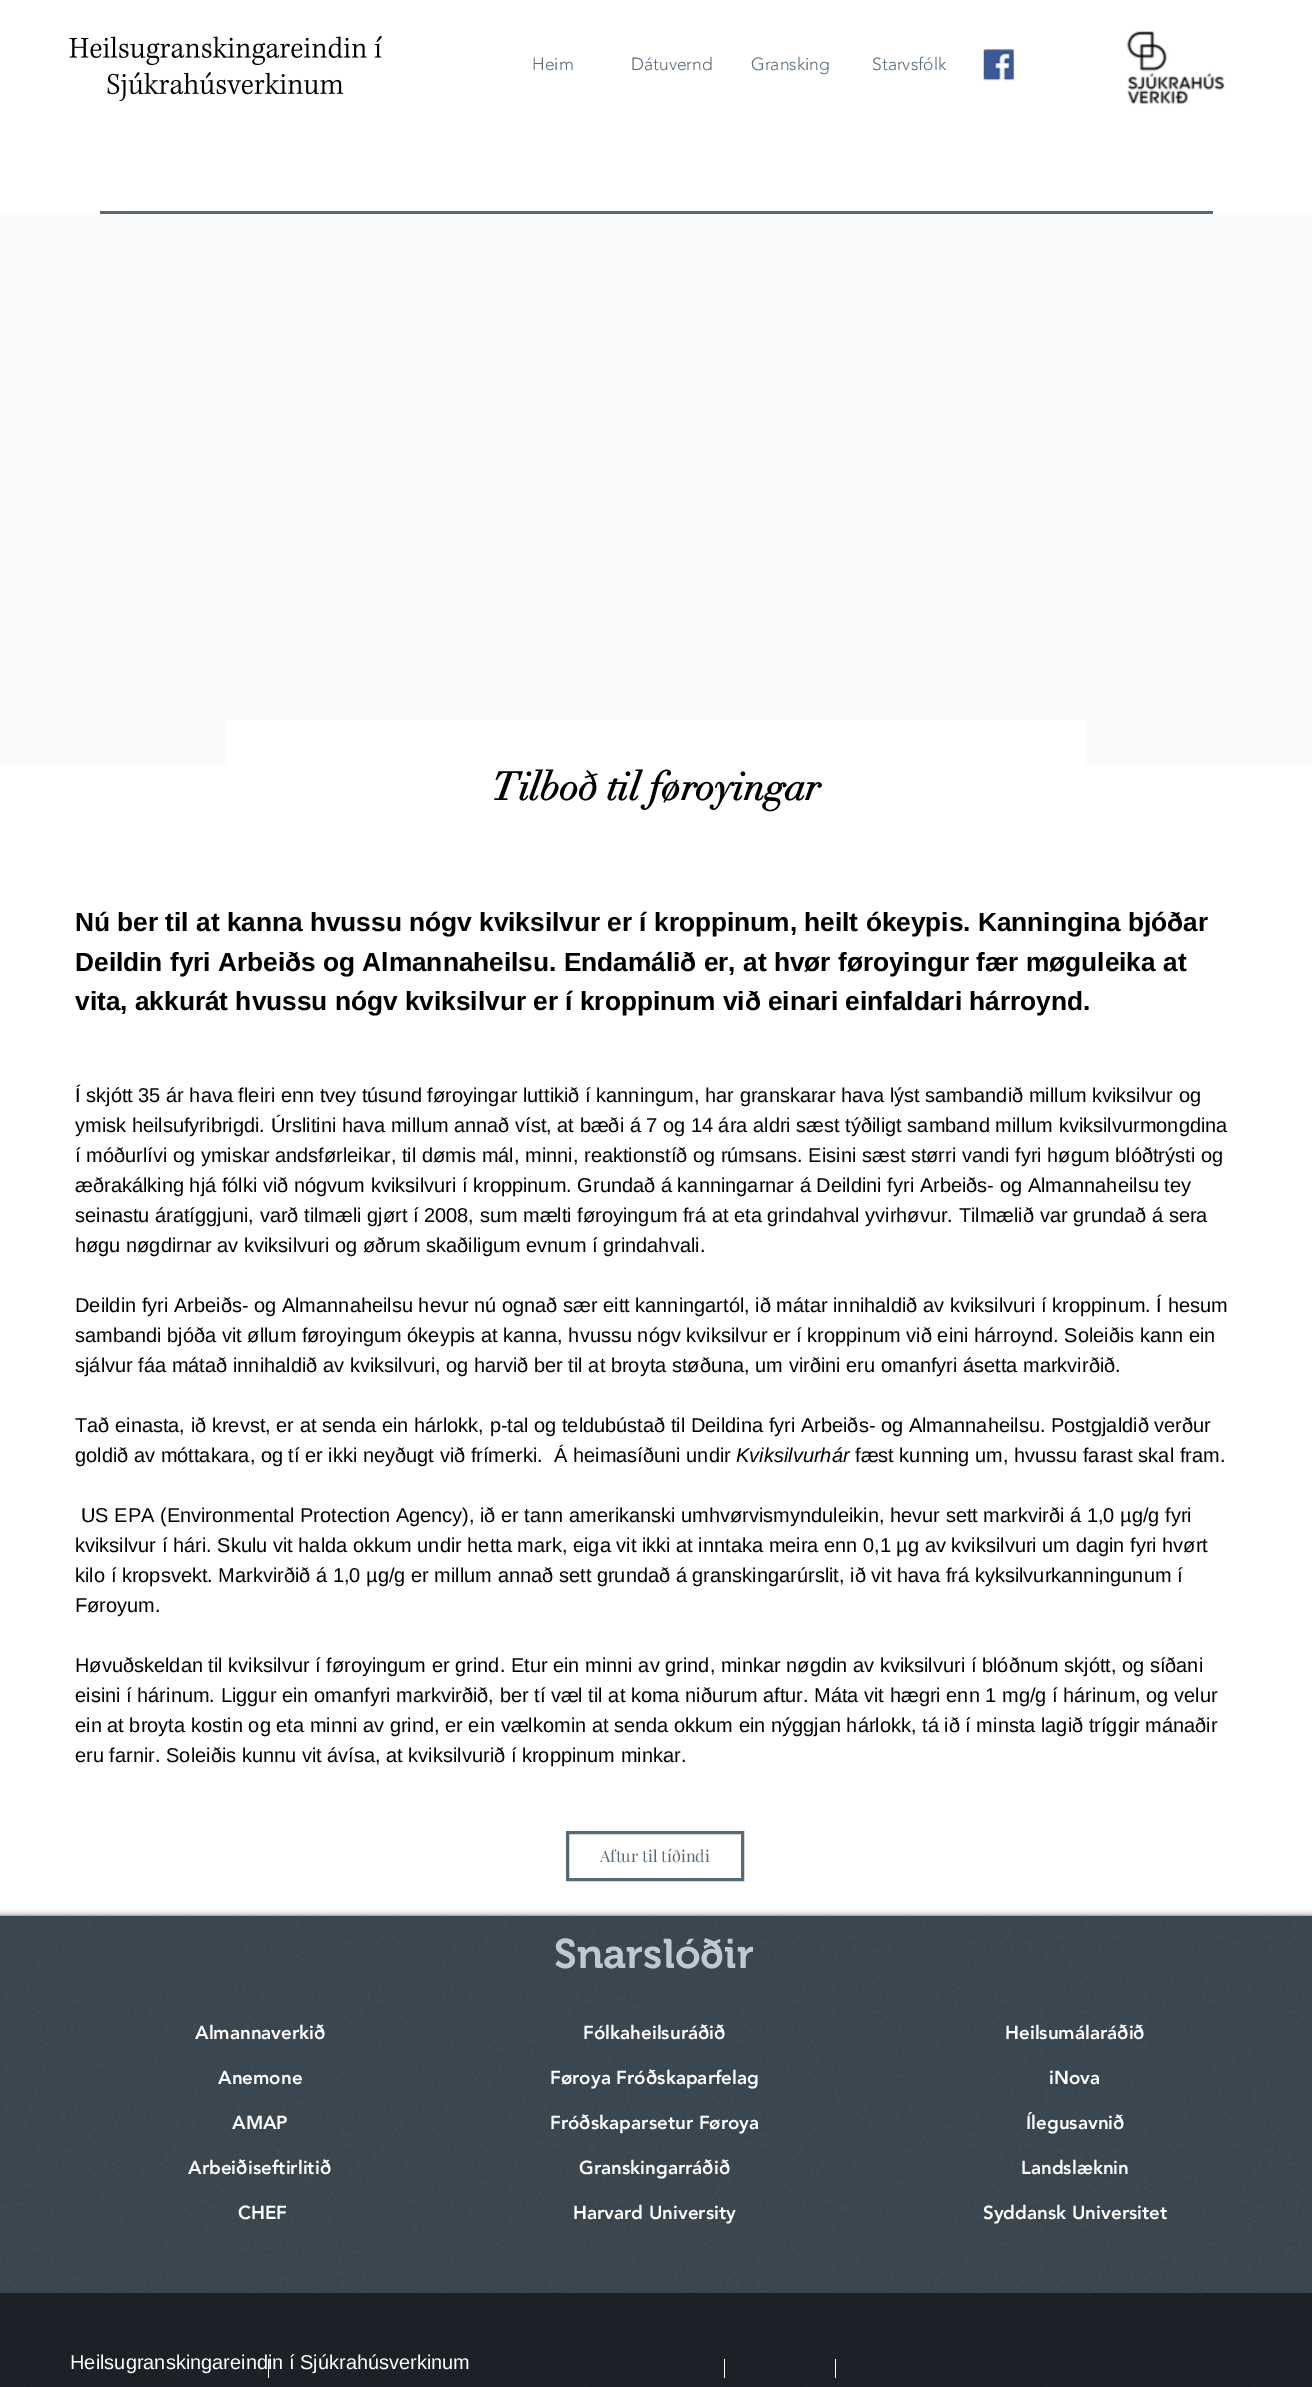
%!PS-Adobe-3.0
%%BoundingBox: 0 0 1312 2387
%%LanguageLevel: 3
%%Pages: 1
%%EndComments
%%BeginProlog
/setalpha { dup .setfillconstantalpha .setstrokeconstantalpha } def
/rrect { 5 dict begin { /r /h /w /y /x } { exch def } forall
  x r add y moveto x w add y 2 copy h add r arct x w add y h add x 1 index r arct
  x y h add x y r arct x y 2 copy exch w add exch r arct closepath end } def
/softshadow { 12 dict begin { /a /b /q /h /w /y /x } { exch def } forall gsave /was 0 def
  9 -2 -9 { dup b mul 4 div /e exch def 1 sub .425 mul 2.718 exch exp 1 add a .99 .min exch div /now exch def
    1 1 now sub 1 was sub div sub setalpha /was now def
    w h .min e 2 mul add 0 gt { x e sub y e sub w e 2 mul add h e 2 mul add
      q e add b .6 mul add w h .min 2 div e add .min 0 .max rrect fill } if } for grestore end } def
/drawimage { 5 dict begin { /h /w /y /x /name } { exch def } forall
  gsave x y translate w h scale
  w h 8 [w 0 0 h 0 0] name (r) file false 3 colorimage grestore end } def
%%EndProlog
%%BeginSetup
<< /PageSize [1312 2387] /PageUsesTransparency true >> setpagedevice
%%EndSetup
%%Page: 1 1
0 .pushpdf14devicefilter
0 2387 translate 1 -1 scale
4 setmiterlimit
1 setgray
0 0 1312 2387 rectfill
(images/1.raw) 69 35 313 31 drawimage
(images/2.raw) 107 72 237 30 drawimage
(images/3.raw) 983 49 31 32 drawimage
(images/4.raw) 1126 31 99 74 drawimage
0.341 0.416 0.478 setrgbcolor
100 211 1113 3 rectfill
0.98 setgray
0 215 1312 549 rectfill
1 setgray
226 720 860 44 rectfill
0.341 0.416 0.478 setrgbcolor
3 setlinewidth
567.5 1832.5 175 47 rectstroke
0 setgray
0 1916 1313 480 0 3 0.7 softshadow
0.227 0.278 0.318 setrgbcolor
0 1916 1312 471 rectfill
(images/5.raw) 0 1916 1312 471 drawimage
0.53 setalpha
0 setgray
0 2293 1312 94 rectfill
1 setalpha
1 setgray
268 2359 1 19 rectfill
724 2359 1 19 rectfill
835 2359 1 19 rectfill
/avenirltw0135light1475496-Light [17.5 0 0 -17.5 0 0] selectfont
0.341 0.416 0.478 setrgbcolor
532 70 moveto (Heim) show
631 70 moveto (Dátuvernd) show
751 70 moveto (Gransking) show
872 70 moveto (Starvsfólk) show
/didot-Bold [38.75 0 0 -38.75 0 0] selectfont
0 setgray
492 800 moveto (Tilboð til føroyingar) show
/LiberationSans-Bold [26.25 0 0 -26.25 0 0] selectfont
75 931 moveto (Nú ber til at kanna hvussu nógv kviksilvur er í kroppinum, heilt ókeypis. Kanningina bjóðar) show
75 971 moveto (Deildin fyri Arbeiðs og Almannaheilsu. Endamálið er, at hvør føroyingur fær møguleika at) show
75 1010 moveto (vita, akkurát hvussu nógv kviksilvur er í kroppinum við einari einfaldari hárroynd.) show
/LiberationSans-Regular [20 0 0 -20 0 0] selectfont
75 1102 moveto (Í skjótt 35 ár hava fleiri enn tvey túsund føroyingar luttikið í kanningum, har granskarar hava lýst sambandið millum kviksilvur og) show
75 1132 moveto (ymisk heilsufyribrigdi. Úrslitini hava millum annað víst, at bæði á 7 og 14 ára aldri sæst týðiligt samband millum kviksilvurmongdina) show
75 1162 moveto (í móðurlívi og ymiskar andsførleikar, til dømis mál, minni, reaktionstíð og rúmsans. Eisini sæst størri vandi fyri høgum blóðtrýsti og) show
75 1192 moveto (æðrakálking hjá fólki við nógvum kviksilvuri í kroppinum. Grundað á kanningarnar á Deildini fyri Arbeiðs- og Almannaheilsu tey) show
75 1222 moveto (seinastu áratíggjuni, varð tilmæli gjørt í 2008, sum mælti føroyingum frá at eta grindahval yvirhøvur. Tilmælið var grundað á sera) show
75 1252 moveto (høgu nøgdirnar av kviksilvuri og øðrum skaðiligum evnum í grindahvali.) show
75 1312 moveto (Deildin fyri Arbeiðs- og Almannaheilsu hevur nú ognað sær eitt kanningartól, ið mátar innihaldið av kviksilvuri í kroppinum. Í hesum) show
75 1342 moveto (sambandi bjóða vit øllum føroyingum ókeypis at kanna, hvussu nógv kviksilvur er í kroppinum við eini hárroynd. Soleiðis kann ein) show
75 1372 moveto (sjálvur fáa mátað innihaldið av kviksilvuri, og harvið ber til at broyta støðuna, um virðini eru omanfyri ásetta markvirðið.) show
75 1432 moveto (Tað einasta, ið krevst, er at senda ein hárlokk, p-tal og teldubústað til Deildina fyri Arbeiðs- og Almannaheilsu. Postgjaldið verður) show
75 1462 moveto (goldið av móttakara, og tí er ikki neyðugt við frímerki.  Á heimasíðuni undir) show
/LiberationSans-Italic [20 0 0 -20 0 0] selectfont
736 1462 moveto (Kviksilvurhár) show
/LiberationSans-Regular [20 0 0 -20 0 0] selectfont
855 1462 moveto (fæst kunning um, hvussu farast skal fram.) show
81 1522 moveto (US EPA \(Environmental Protection Agency\), ið er tann amerikanski umhvørvismynduleikin, hevur sett markvirði á 1,0 µg/g fyri) show
75 1552 moveto (kviksilvur í hári. Skulu vit halda okkum undir hetta mark, eiga vit ikki at inntaka meira enn 0,1 µg av kviksilvuri um dagin fyri hvørt) show
75 1582 moveto (kilo í kropsvekt. Markvirðið á 1,0 µg/g er millum annað sett grundað á granskingarúrslit, ið vit hava frá kyksilvurkanningunum í) show
75 1612 moveto (Føroyum.) show
75 1672 moveto (Høvuðskeldan til kviksilvur í føroyingum er grind. Etur ein minni av grind, minkar nøgdin av kviksilvuri í blóðnum skjótt, og síðani) show
75 1702 moveto (eisini í hárinum. Liggur ein omanfyri markvirðið, ber tí væl til at koma niðurum aftur. Máta vit hægri enn 1 mg/g í hárinum, og velur) show
75 1732 moveto (ein at broyta kostin og eta minni av grind, er ein vælkomin at senda okkum ein nýggjan hárlokk, tá ið í minsta lagið tríggir mánaðir) show
75 1762 moveto (eru farnir. Soleiðis kunnu vit ávísa, at kviksilvurið í kroppinum minkar.) show
/PlayfairDisplay-Regular [16.25 0 0 -16.25 0 0] selectfont
0.341 0.416 0.478 setrgbcolor
600 1862 moveto (Aftur til tíðindi) show
/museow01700-SemiBold [41.25 0 0 -41.25 0 0] selectfont
0.749 0.788 0.827 setrgbcolor
554 1968 moveto (Snarslóðir) show
/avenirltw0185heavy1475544-Black [18.75 0 0 -18.75 0 0] selectfont
1 setgray
195 2039 moveto (Almannaverkið) show
218 2084 moveto (Anemone) show
232 2129 moveto (AMAP) show
188 2174 moveto (Arbeiðiseftirlitið) show
238 2219 moveto (CHEF) show
583 2039 moveto (Fólkaheilsuráðið) show
550 2084 moveto (Føroya Fróðskaparfelag) show
550 2129 moveto (Fróðskaparsetur Føroya) show
579 2174 moveto (Granskingarráðið) show
573 2219 moveto (Harvard University) show
1005 2039 moveto (Heilsumálaráðið) show
1049 2084 moveto (iNova) show
1026 2129 moveto (Ílegusavnið) show
1021 2174 moveto (Landslæknin) show
983 2219 moveto (Syddansk Universitet) show
/LiberationSans-Regular [20 0 0 -20 0 0] selectfont
70 2369 moveto (Heilsugranskingareindin í Sjúkrahúsverkinum) show
.poppdf14devicefilter showpage
%%EOF
